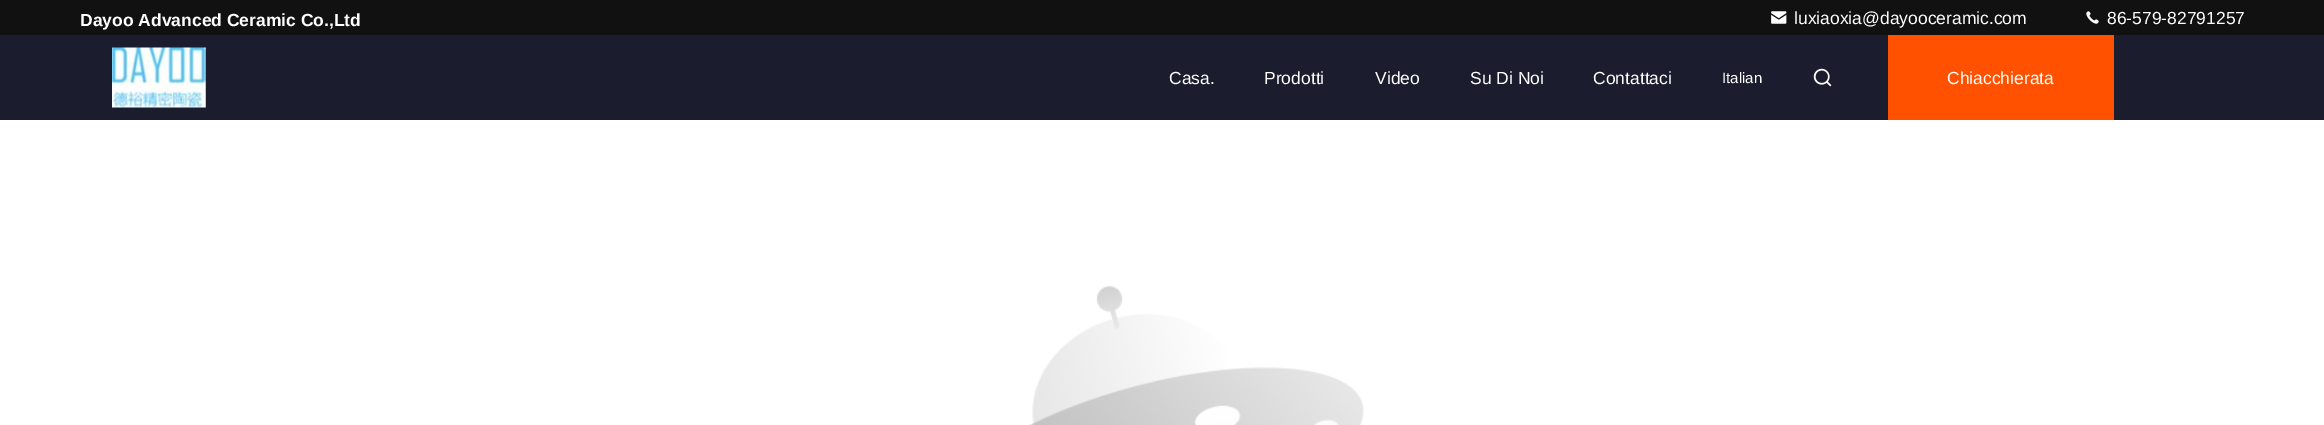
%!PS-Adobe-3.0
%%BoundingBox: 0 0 2324 425
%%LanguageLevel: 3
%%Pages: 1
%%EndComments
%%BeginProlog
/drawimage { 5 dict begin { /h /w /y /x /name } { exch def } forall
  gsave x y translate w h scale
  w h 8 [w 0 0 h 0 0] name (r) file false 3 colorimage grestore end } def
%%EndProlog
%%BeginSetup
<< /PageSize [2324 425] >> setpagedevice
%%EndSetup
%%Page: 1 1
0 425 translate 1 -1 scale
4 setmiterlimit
1 setgray
0 0 2324 425 rectfill
0.067 setgray
0 0 2324 35 rectfill
(images/1.raw) 1771 11 16 13 drawimage
(images/2.raw) 2086 11 13 13 drawimage
0.106 0.114 0.18 setrgbcolor
0 35 2324 85 rectfill
(images/3.raw) 112 47 94 61 drawimage
(images/4.raw) 1813 68 19 19 drawimage
1 0.318 0 setrgbcolor
1888 35 226 85 rectfill
(images/5.raw) 1029 286 335 139 drawimage
/LiberationSans-Bold [17.5 0 0 -17.5 0 0] selectfont
1 setgray
80 26 moveto (Dayoo Advanced Ceramic Co.,Ltd) show
/LiberationSans-Regular [17.5 0 0 -17.5 0 0] selectfont
1794 24 moveto (luxiaoxia@dayooceramic.com) show
2107 24 moveto (86-579-82791257) show
1169 84 moveto (Casa.) show
1264 84 moveto (Prodotti) show
1375 84 moveto (Video) show
1470 84 moveto (Su Di Noi) show
1593 84 moveto (Contattaci) show
/LiberationSans-Regular [15 0 0 -15 0 0] selectfont
1722 83 moveto (Italian) show
/LiberationSans-Regular [17.5 0 0 -17.5 0 0] selectfont
1947 84 moveto (Chiacchierata) show
showpage
%%EOF
